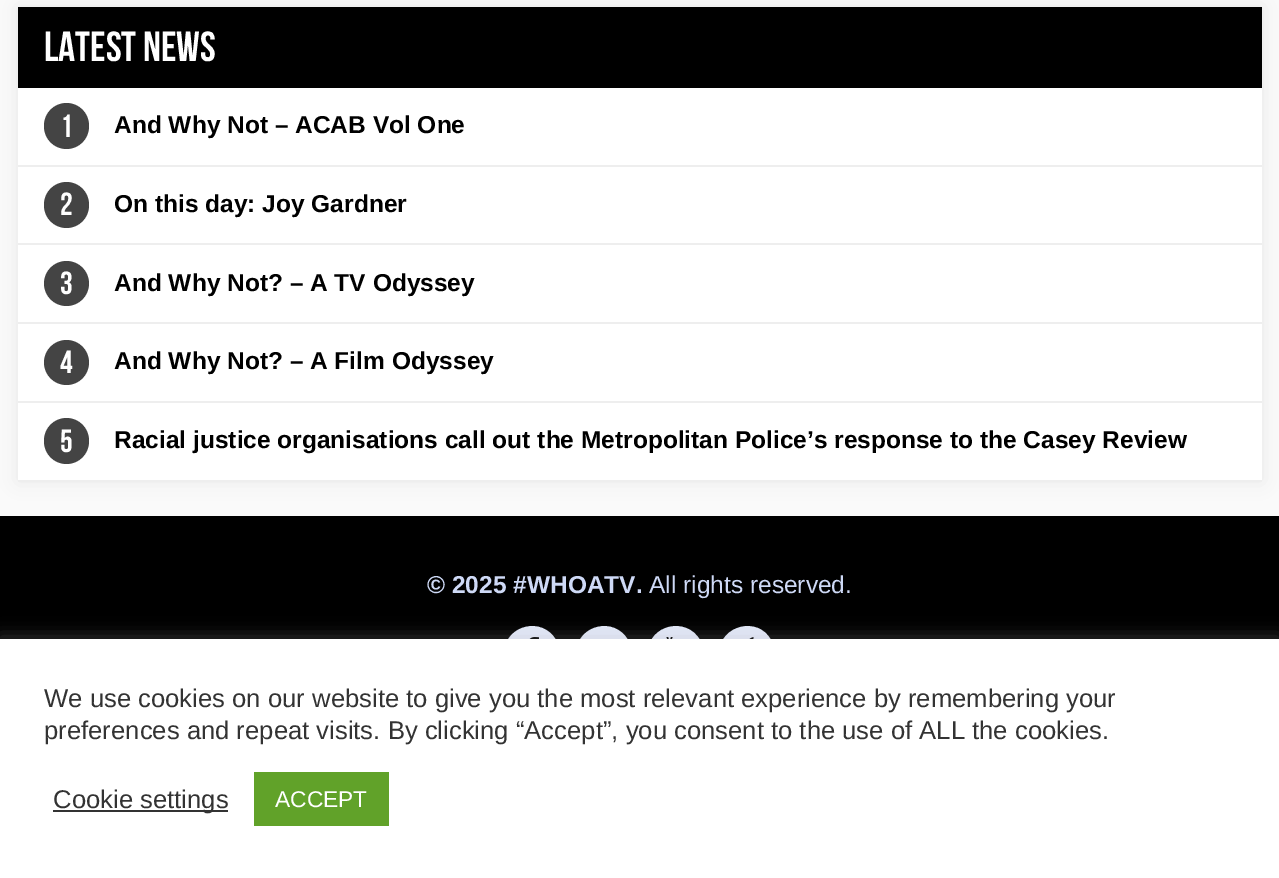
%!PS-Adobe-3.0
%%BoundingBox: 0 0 1279 878
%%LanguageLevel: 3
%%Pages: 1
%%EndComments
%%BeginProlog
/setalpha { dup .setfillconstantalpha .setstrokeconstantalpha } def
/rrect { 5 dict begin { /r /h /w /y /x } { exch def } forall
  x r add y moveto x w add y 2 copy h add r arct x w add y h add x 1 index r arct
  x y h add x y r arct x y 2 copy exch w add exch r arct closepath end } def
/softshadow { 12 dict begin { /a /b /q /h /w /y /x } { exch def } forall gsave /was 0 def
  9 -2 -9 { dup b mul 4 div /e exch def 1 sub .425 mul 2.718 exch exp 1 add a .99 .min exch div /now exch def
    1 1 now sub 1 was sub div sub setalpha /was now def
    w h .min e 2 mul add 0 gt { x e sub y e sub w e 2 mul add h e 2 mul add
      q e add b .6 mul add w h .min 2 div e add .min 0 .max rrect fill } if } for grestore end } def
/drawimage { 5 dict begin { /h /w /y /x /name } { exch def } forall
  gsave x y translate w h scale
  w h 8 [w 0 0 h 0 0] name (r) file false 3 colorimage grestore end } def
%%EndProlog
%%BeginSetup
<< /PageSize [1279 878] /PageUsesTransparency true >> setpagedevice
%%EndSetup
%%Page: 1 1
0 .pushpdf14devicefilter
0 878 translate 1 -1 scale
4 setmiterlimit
0.98 setgray
0 0 1279 878 rectfill
0 setgray
18 7 1244 474 0 9 0.07 softshadow
1 setgray
18 88 1244 392 rectfill
0 setgray
18 7 1244 81 rectfill
0.933 setgray
18 165 1244 2 rectfill
0.267 setgray
44 103 45 46 22.5 rrect fill
0.933 setgray
18 243 1244 2 rectfill
0.267 setgray
44 182 45 46 22.5 rrect fill
0.933 setgray
18 322 1244 2 rectfill
0.267 setgray
newpath 66.5 283.5 22.5 0 360 arc closepath fill
0.933 setgray
18 401 1244 2 rectfill
0.267 setgray
newpath 66.5 362.5 22.5 0 360 arc closepath fill
0.933 setgray
18 480 1244 2 rectfill
0.267 setgray
44 418 45 46 22.5 rrect fill
0 setgray
0 516 1279 123 rectfill
0.886 0.91 0.976 setrgbcolor
newpath 556 640 moveto 559 645 560 650 560 656 curveto 558 683 522 692 508 668 curveto 505 663 504 658 504 652 curveto 506 625 542 616 556 640 curveto closepath fill
(images/1.raw) 529 637 10 2 drawimage
newpath 628 640 moveto 631 645 632 650 632 656 curveto 630 683 593 692 580 668 curveto 577 663 575 658 576 652 curveto 578 625 614 616 628 640 curveto closepath fill
newpath 700 640 moveto 703 645 704 650 703 656 curveto 702 683 665 692 651 668 curveto 648 663 647 658 648 652 curveto 649 625 686 616 700 640 curveto closepath fill
(images/2.raw) 666 637 7 2 drawimage
newpath 771 640 moveto 774 645 776 650 775 656 curveto 773 683 737 692 723 668 curveto 720 663 719 658 719 652 curveto 721 625 758 616 771 640 curveto closepath fill
(images/3.raw) 749 637 5 2 drawimage
0.675 0.671 0.671 setrgbcolor
0 637 1279 240 0 9 0.3 softshadow
1 setgray
0 639 1279 239 rectfill
0.2 setgray
53 810 175 2 rectfill
0.38 0.635 0.161 setrgbcolor
254 772 135 54 rectfill
/BebasNeue-Regular [42 0 0 -42 0 0] selectfont
1 setgray
44 61 moveto (Latest News) show
/BebasNeue-Regular [32 0 0 -32 0 0] selectfont
60 137 moveto (1) show
/LiberationSans-Bold [24.5 0 0 -24.5 0 0] selectfont
0 setgray
114 133 moveto (And Why Not – ACAB Vol One) show
/BebasNeue-Regular [32 0 0 -32 0 0] selectfont
1 setgray
60 215 moveto (2) show
/LiberationSans-Bold [24.5 0 0 -24.5 0 0] selectfont
0 setgray
114 212 moveto (On this day: Joy Gardner) show
/BebasNeue-Regular [32 0 0 -32 0 0] selectfont
1 setgray
60 294 moveto (3) show
/LiberationSans-Bold [24.5 0 0 -24.5 0 0] selectfont
0 setgray
114 291 moveto (And Why Not? – A TV Odyssey) show
/BebasNeue-Regular [32 0 0 -32 0 0] selectfont
1 setgray
60 373 moveto (4) show
/LiberationSans-Bold [24.5 0 0 -24.5 0 0] selectfont
0 setgray
114 369 moveto (And Why Not? – A Film Odyssey) show
/BebasNeue-Regular [32 0 0 -32 0 0] selectfont
1 setgray
60 452 moveto (5) show
/LiberationSans-Bold [24.5 0 0 -24.5 0 0] selectfont
0 setgray
114 448 moveto (Racial justice organisations call out the Metropolitan Police’s response to the Casey Review) show
0.808 0.851 0.965 setrgbcolor
427 593 moveto (© 2025 #WHOATV.) show
/LiberationSans-Regular [24.5 0 0 -24.5 0 0] selectfont
649 593 moveto (All rights reserved.) show
/LiberationSans-Regular [25.65 0 0 -25.65 0 0] selectfont
0.2 setgray
44 707 moveto (We use cookies on our website to give you the most relevant experience by remembering your) show
44 739 moveto (preferences and repeat visits. By clicking “Accept”, you consent to the use of ALL the cookies.) show
53 808 moveto (Cookie settings) show
/LiberationSans-Regular [22.75 0 0 -22.75 0 0] selectfont
1 setgray
275 807 moveto (ACCEPT) show
.poppdf14devicefilter showpage
%%EOF
